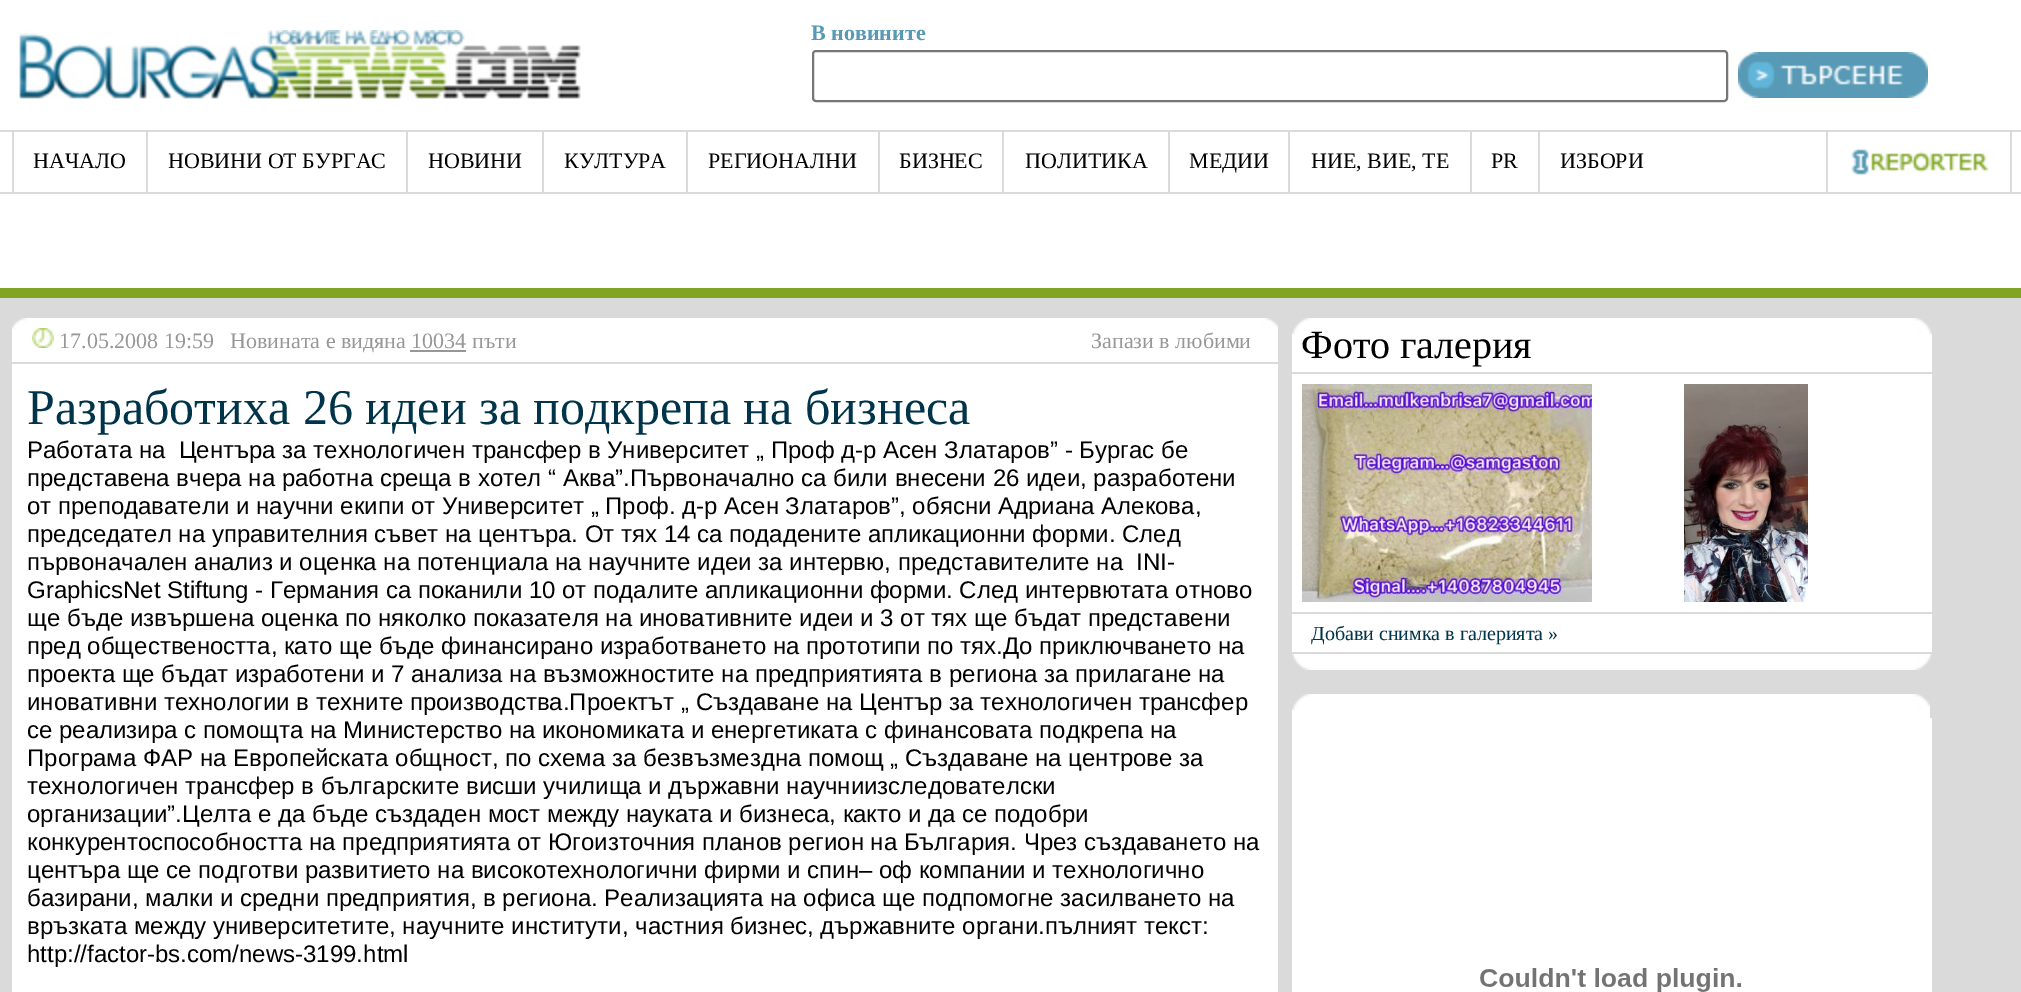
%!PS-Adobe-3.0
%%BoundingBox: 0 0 2021 992
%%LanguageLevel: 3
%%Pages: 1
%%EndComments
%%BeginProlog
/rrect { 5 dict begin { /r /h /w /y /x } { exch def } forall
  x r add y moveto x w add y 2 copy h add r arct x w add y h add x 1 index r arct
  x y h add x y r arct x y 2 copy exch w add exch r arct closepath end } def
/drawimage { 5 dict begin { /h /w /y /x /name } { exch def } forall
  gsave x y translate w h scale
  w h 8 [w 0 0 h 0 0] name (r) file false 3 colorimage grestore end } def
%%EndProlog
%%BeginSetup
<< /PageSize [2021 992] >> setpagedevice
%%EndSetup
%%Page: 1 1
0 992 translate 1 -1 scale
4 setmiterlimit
0.855 setgray
0 0 2021 992 rectfill
1 setgray
0 0 2021 288 rectfill
0.502 0.647 0.141 setrgbcolor
0 288 2021 10 rectfill
(images/1.raw) 19 30 562 69 drawimage
0.463 setgray
2 setlinewidth
813 51 914 50 3 rrect stroke
(images/2.raw) 1738 52 190 46 drawimage
0.855 setgray
0 130 2021 2 rectfill
0 192 2021 2 rectfill
12 132 2 60 rectfill
146 132 2 60 rectfill
406 132 2 60 rectfill
542 132 2 60 rectfill
686 132 2 60 rectfill
878 132 2 60 rectfill
1002 132 2 60 rectfill
1168 132 2 60 rectfill
1288 132 2 60 rectfill
1470 132 2 60 rectfill
1538 132 2 60 rectfill
2010 132 2 60 rectfill
1826 132 2 60 rectfill
(images/3.raw) 1851 149 138 26 drawimage
1 setgray
12 329 1266 33 rectfill
(images/4.raw) 12 318 1266 11 drawimage
(images/5.raw) 32 328 22 20 drawimage
0.592 setgray
410 350 56 2 rectfill
1 setgray
12 364 1266 628 rectfill
1292 334 640 38 rectfill
(images/6.raw) 1292 318 640 16 drawimage
1292 374 640 238 rectfill
(images/7.raw) 1302 384 290 218 drawimage
(images/8.raw) 1684 384 124 218 drawimage
1292 614 640 38 rectfill
(images/9.raw) 1292 654 640 16 drawimage
1292 710 638 8 rectfill
(images/10.raw) 1292 694 638 16 drawimage
1292 718 640 274 rectfill
(images/11.raw) 1480 968 262 24 drawimage
/LiberationSerif-Bold [22 0 0 -22 0 0] selectfont
0.345 0.604 0.714 setrgbcolor
811 40 moveto (В новините) show
/LiberationSerif-Regular [22 0 0 -22 0 0] selectfont
0 setgray
33 168 moveto (НАЧАЛО) show
168 168 moveto (НОВИНИ ОТ БУРГАС) show
428 168 moveto (НОВИНИ) show
564 168 moveto (КУЛТУРА) show
708 168 moveto (РЕГИОНАЛНИ) show
899 168 moveto (БИЗНЕС) show
1025 168 moveto (ПОЛИТИКА) show
1189 168 moveto (МЕДИИ) show
1311 168 moveto (НИЕ, ВИЕ, ТЕ) show
1491 168 moveto (PR) show
1560 168 moveto (ИЗБОРИ) show
0.592 setgray
59 348 moveto (17.05.2008 19:59   Новината е видяна 10034 пъти) show
1091 348 moveto (Запази в любими) show
/LiberationSerif-Regular [50 0 0 -50 0 0] selectfont
0 0.204 0.29 setrgbcolor
27 424 moveto (Разработиха 26 идеи за подкрепа на бизнеса) show
/LiberationSans-Regular [24 0 0 -24 0 0] selectfont
0 setgray
27 458 moveto (Работата на  Центъра за технологичен трансфер в Университет „ Проф д-р Асен Златаров” - Бургас бе) show
27 486 moveto (представена вчера на работна среща в хотел “ Аква”.Първоначално са били внесени 26 идеи, разработени) show
27 514 moveto (от преподаватели и научни екипи от Университет „ Проф. д-р Асен Златаров”, обясни Адриана Алекова,) show
27 542 moveto (председател на управителния съвет на центъра. От тях 14 са подадените апликационни форми. След) show
27 570 moveto (първоначален анализ и оценка на потенциала на научните идеи за интервю, представителите на  INI-) show
27 598 moveto (GraphicsNet Stiftung - Германия са поканили 10 от подалите апликационни форми. След интервютата отново) show
27 626 moveto (ще бъде извършена оценка по няколко показателя на иновативните идеи и 3 от тях ще бъдат представени) show
27 654 moveto (пред обществеността, като ще бъде финансирано изработването на прототипи по тях.До приключването на) show
27 682 moveto (проекта ще бъдат изработени и 7 анализа на възможностите на предприятията в региона за прилагане на) show
27 710 moveto (иновативни технологии в техните производства.Проектът „ Създаване на Център за технологичен трансфер) show
27 738 moveto (се реализира с помощта на Министерство на икономиката и енергетиката с финансовата подкрепа на) show
27 766 moveto (Програма ФАР на Европейската общност, по схема за безвъзмездна помощ „ Създаване на центрове за) show
27 794 moveto (технологичен трансфер в българските висши училища и държавни научниизследователски) show
27 822 moveto (организации”.Целта е да бъде създаден мост между науката и бизнеса, както и да се подобри) show
27 850 moveto (конкурентоспособността на предприятията от Югоизточния планов регион на България. Чрез създаването на) show
27 878 moveto (центъра ще се подготви развитието на високотехнологични фирми и спин– оф компании и технологично) show
27 906 moveto (базирани, малки и средни предприятия, в региона. Реализацията на офиса ще подпомогне засилването на) show
27 934 moveto (връзката между университетите, научните институти, частния бизнес, държавните органи.пълният текст:) show
27 962 moveto (http://factor-bs.com/news-3199.html) show
/LiberationSerif-Regular [40 0 0 -40 0 0] selectfont
1301 358 moveto (Фото галерия) show
/LiberationSerif-Regular [20 0 0 -20 0 0] selectfont
0 0.204 0.29 setrgbcolor
1311 640 moveto (Добави снимка в галерията ») show
showpage
%%EOF
